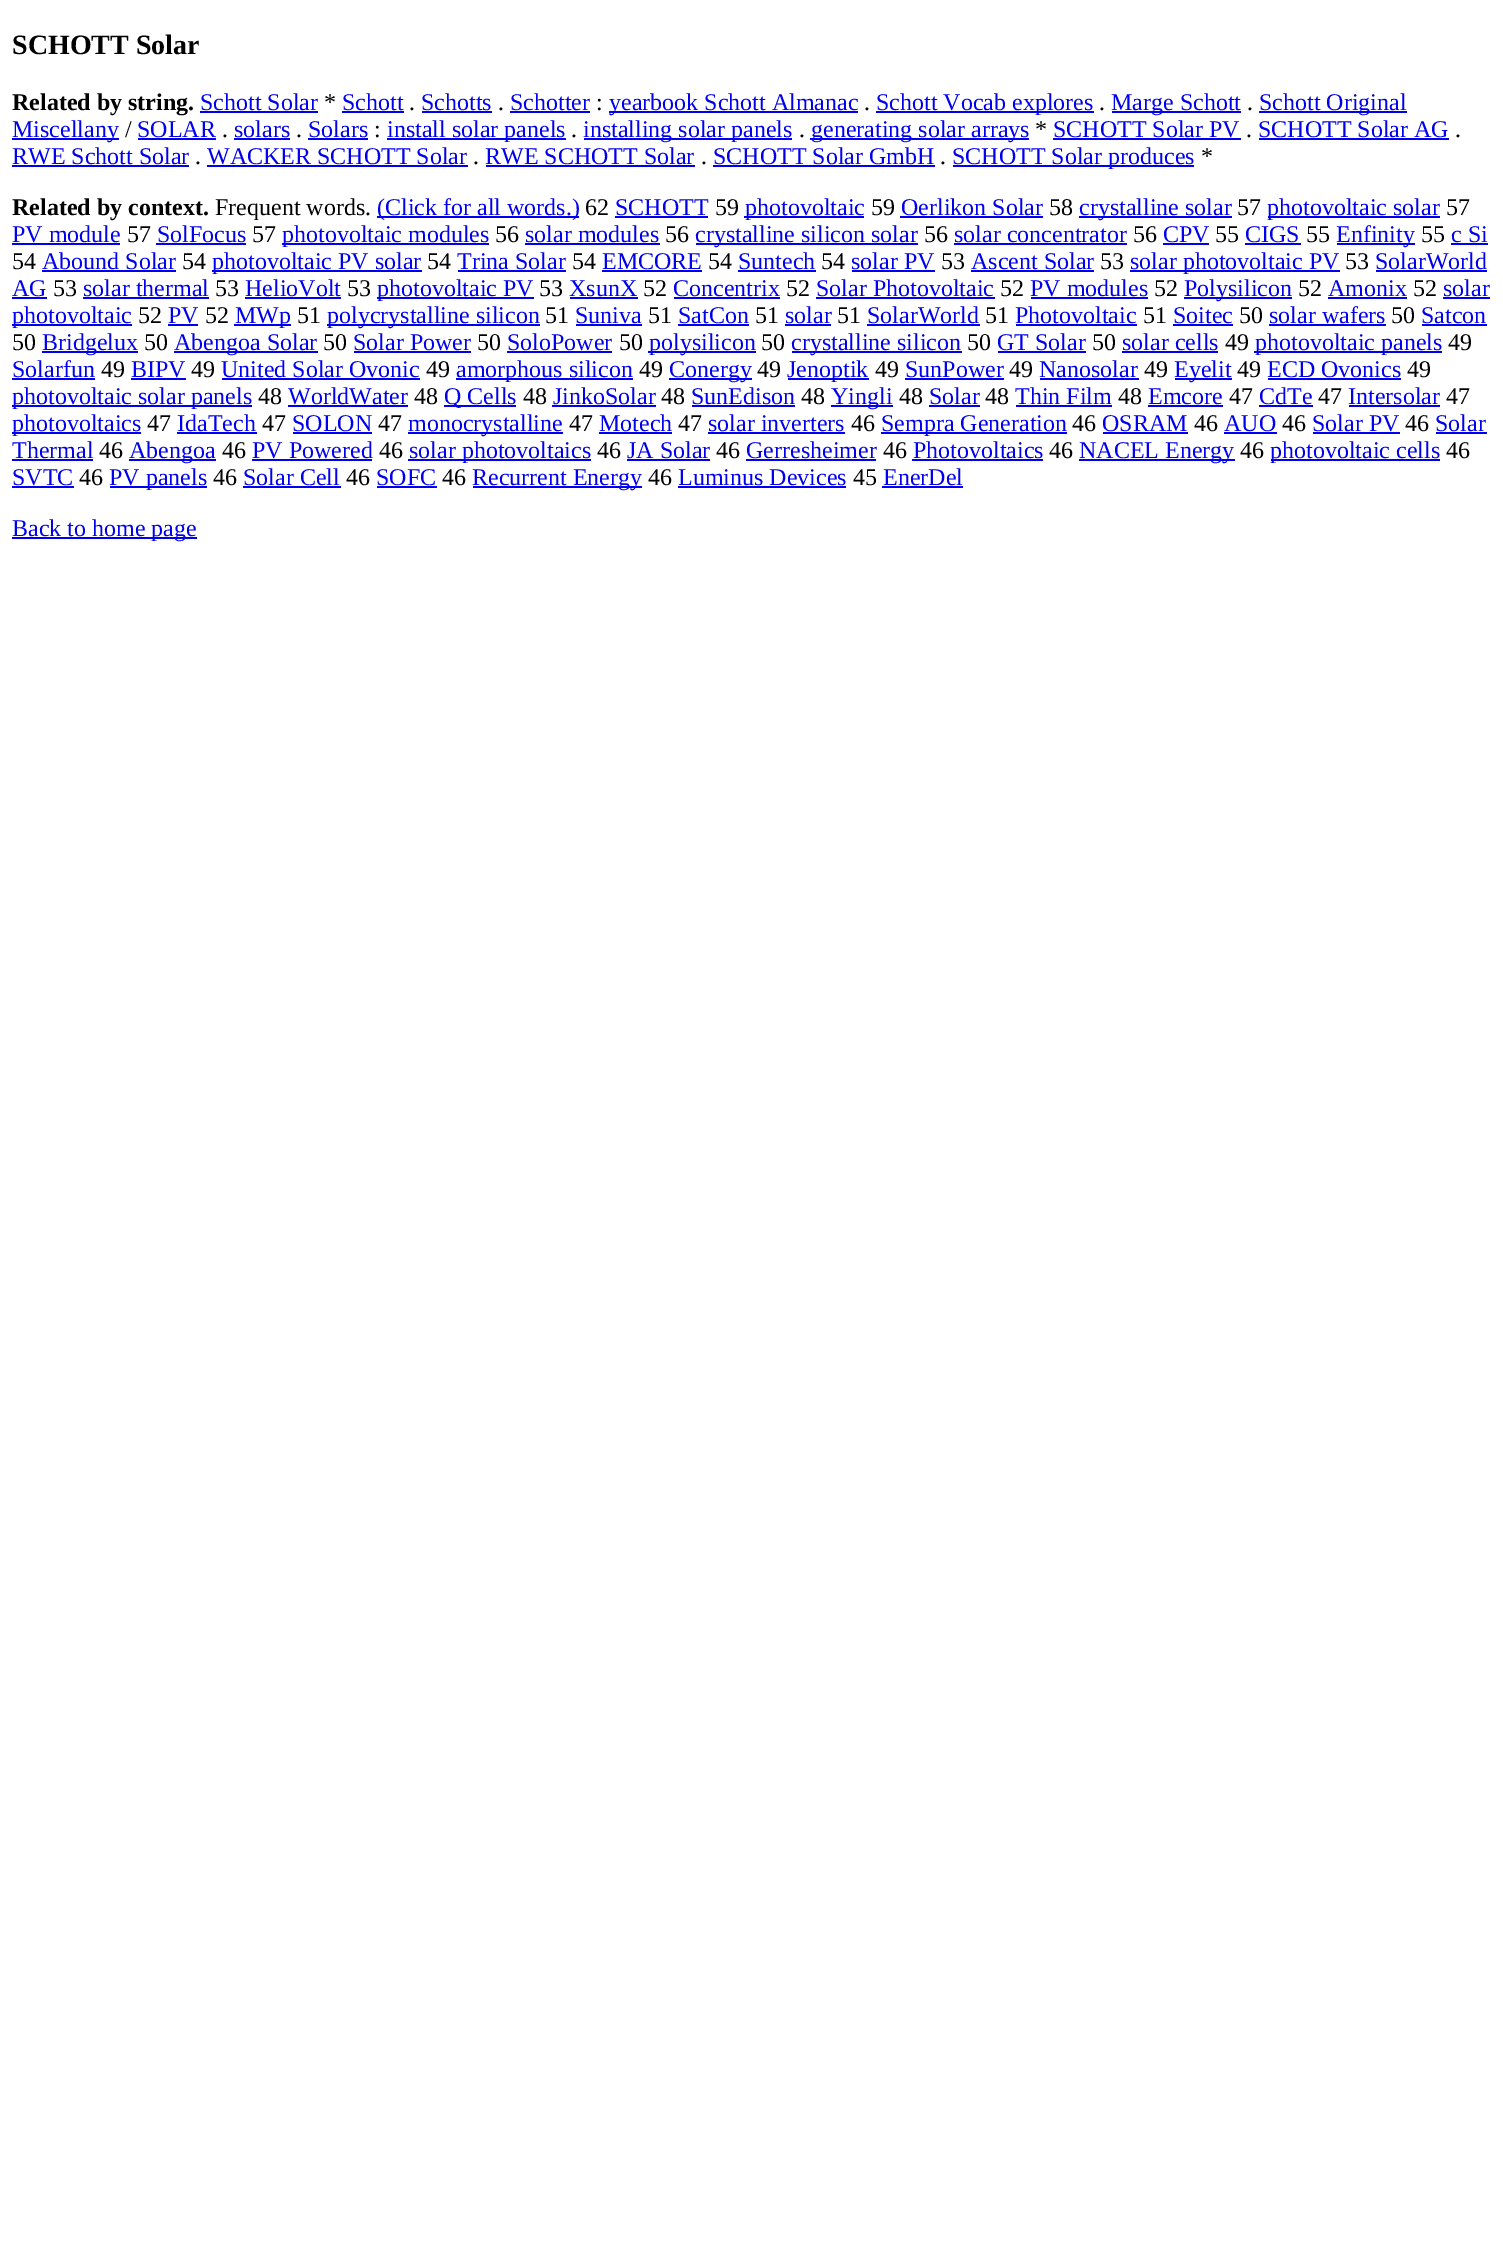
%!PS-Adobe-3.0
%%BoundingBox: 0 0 1503 2251
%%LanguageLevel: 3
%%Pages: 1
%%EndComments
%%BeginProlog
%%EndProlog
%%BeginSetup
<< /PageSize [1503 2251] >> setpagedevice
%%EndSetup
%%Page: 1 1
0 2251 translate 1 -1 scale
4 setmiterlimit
1 setgray
0 0 1503 2251 rectfill
0 0 0.933 setrgbcolor
200 111 118 2 rectfill
342 111 62 2 rectfill
422 111 70 2 rectfill
510 111 80 2 rectfill
609 111 249 2 rectfill
876 111 218 2 rectfill
1112 111 129 2 rectfill
1259 111 148 2 rectfill
12 138 107 2 rectfill
138 138 78 2 rectfill
234 138 56 2 rectfill
308 138 60 2 rectfill
387 138 179 2 rectfill
584 138 208 2 rectfill
810 138 219 2 rectfill
1053 138 188 2 rectfill
1259 138 190 2 rectfill
12 165 177 2 rectfill
207 165 261 2 rectfill
486 165 209 2 rectfill
713 165 222 2 rectfill
953 165 241 2 rectfill
377 216 202 2 rectfill
615 216 93 2 rectfill
744 216 120 2 rectfill
900 216 143 2 rectfill
1079 216 153 2 rectfill
1268 216 172 2 rectfill
12 243 108 2 rectfill
156 243 90 2 rectfill
282 243 207 2 rectfill
525 243 135 2 rectfill
696 243 222 2 rectfill
954 243 173 2 rectfill
1163 243 46 2 rectfill
1245 243 56 2 rectfill
1337 243 78 2 rectfill
1451 243 37 2 rectfill
42 270 134 2 rectfill
212 270 210 2 rectfill
458 270 108 2 rectfill
602 270 100 2 rectfill
738 270 78 2 rectfill
852 270 83 2 rectfill
971 270 123 2 rectfill
1130 270 210 2 rectfill
1376 270 111 2 rectfill
12 297 35 2 rectfill
83 297 126 2 rectfill
245 297 96 2 rectfill
377 297 157 2 rectfill
570 297 68 2 rectfill
674 297 106 2 rectfill
816 297 179 2 rectfill
1031 297 117 2 rectfill
1184 297 108 2 rectfill
1328 297 79 2 rectfill
1443 297 47 2 rectfill
12 324 120 2 rectfill
168 324 30 2 rectfill
234 324 57 2 rectfill
327 324 213 2 rectfill
576 324 66 2 rectfill
678 324 71 2 rectfill
785 324 46 2 rectfill
867 324 113 2 rectfill
1016 324 121 2 rectfill
1173 324 60 2 rectfill
1269 324 117 2 rectfill
1422 324 65 2 rectfill
42 351 96 2 rectfill
174 351 144 2 rectfill
354 351 117 2 rectfill
507 351 105 2 rectfill
648 351 108 2 rectfill
792 351 170 2 rectfill
998 351 88 2 rectfill
1122 351 96 2 rectfill
1254 351 188 2 rectfill
12 378 83 2 rectfill
131 378 55 2 rectfill
222 378 198 2 rectfill
456 378 177 2 rectfill
669 378 83 2 rectfill
788 378 81 2 rectfill
905 378 99 2 rectfill
1040 378 99 2 rectfill
1175 378 57 2 rectfill
1268 378 133 2 rectfill
12 405 240 2 rectfill
288 405 120 2 rectfill
444 405 72 2 rectfill
552 405 104 2 rectfill
692 405 103 2 rectfill
831 405 62 2 rectfill
929 405 51 2 rectfill
1016 405 96 2 rectfill
1148 405 75 2 rectfill
1259 405 54 2 rectfill
1349 405 91 2 rectfill
12 432 129 2 rectfill
177 432 80 2 rectfill
293 432 79 2 rectfill
408 432 155 2 rectfill
599 432 73 2 rectfill
708 432 137 2 rectfill
881 432 186 2 rectfill
1103 432 85 2 rectfill
1224 432 53 2 rectfill
1313 432 87 2 rectfill
1436 432 51 2 rectfill
12 459 81 2 rectfill
129 459 87 2 rectfill
252 459 120 2 rectfill
408 459 183 2 rectfill
627 459 83 2 rectfill
746 459 130 2 rectfill
912 459 131 2 rectfill
1079 459 156 2 rectfill
1271 459 169 2 rectfill
12 486 62 2 rectfill
110 486 97 2 rectfill
243 486 98 2 rectfill
377 486 60 2 rectfill
473 486 169 2 rectfill
678 486 168 2 rectfill
882 486 81 2 rectfill
12 537 185 2 rectfill
/LiberationSerif-Bold [28 0 0 -28 0 0] selectfont
0 setgray
12 54 moveto (SCHOTT Solar) show
/LiberationSerif-Bold [24 0 0 -24 0 0] selectfont
12 110 moveto (Related by string.) show
/LiberationSerif-Regular [24 0 0 -24 0 0] selectfont
0 0 0.933 setrgbcolor
200 110 moveto (Schott Solar) show
0 setgray
324 110 moveto (*) show
0 0 0.933 setrgbcolor
342 110 moveto (Schott) show
0 setgray
409 110 moveto (.) show
0 0 0.933 setrgbcolor
421 110 moveto (Schotts) show
0 setgray
498 110 moveto (.) show
0 0 0.933 setrgbcolor
510 110 moveto (Schotter) show
0 setgray
596 110 moveto (:) show
0 0 0.933 setrgbcolor
609 110 moveto (yearbook Schott Almanac) show
0 setgray
864 110 moveto (.) show
0 0 0.933 setrgbcolor
876 110 moveto (Schott Vocab explores) show
0 setgray
1099 110 moveto (.) show
0 0 0.933 setrgbcolor
1111 110 moveto (Marge Schott) show
0 setgray
1247 110 moveto (.) show
0 0 0.933 setrgbcolor
1259 110 moveto (Schott Original) show
12 137 moveto (Miscellany) show
0 setgray
125 137 moveto (/) show
0 0 0.933 setrgbcolor
137 137 moveto (SOLAR) show
0 setgray
222 137 moveto (.) show
0 0 0.933 setrgbcolor
234 137 moveto (solars) show
0 setgray
296 137 moveto (.) show
0 0 0.933 setrgbcolor
308 137 moveto (Solars) show
0 setgray
374 137 moveto (:) show
0 0 0.933 setrgbcolor
387 137 moveto (install solar panels) show
0 setgray
571 137 moveto (.) show
0 0 0.933 setrgbcolor
583 137 moveto (installing solar panels) show
0 setgray
799 137 moveto (.) show
0 0 0.933 setrgbcolor
811 137 moveto (generating solar arrays) show
0 setgray
1035 137 moveto (*) show
0 0 0.933 setrgbcolor
1053 137 moveto (SCHOTT Solar PV) show
0 setgray
1246 137 moveto (.) show
0 0 0.933 setrgbcolor
1258 137 moveto (SCHOTT Solar AG) show
0 setgray
1455 137 moveto (.) show
0 0 0.933 setrgbcolor
12 164 moveto (RWE Schott Solar) show
207 164 moveto (WACKER SCHOTT Solar) show
485 164 moveto (RWE SCHOTT Solar) show
713 164 moveto (SCHOTT Solar GmbH) show
952 164 moveto (SCHOTT Solar produces) show
0 setgray
1201 164 moveto (*) show
195 164 moveto (.) show
473 164 moveto (.) show
701 164 moveto (.) show
940 164 moveto (.) show
/LiberationSerif-Bold [24 0 0 -24 0 0] selectfont
12 215 moveto (Related by context.) show
/LiberationSerif-Regular [24 0 0 -24 0 0] selectfont
215 215 moveto (Frequent words.) show
0 0 0.933 setrgbcolor
377 215 moveto (\(Click for all words.\)) show
0 setgray
585 215 moveto (62) show
0 0 0.933 setrgbcolor
615 215 moveto (SCHOTT) show
0 setgray
715 215 moveto (59) show
0 0 0.933 setrgbcolor
745 215 moveto (photovoltaic) show
0 setgray
871 215 moveto (59) show
0 0 0.933 setrgbcolor
901 215 moveto (Oerlikon Solar) show
0 setgray
1049 215 moveto (58) show
0 0 0.933 setrgbcolor
1079 215 moveto (crystalline solar) show
0 setgray
1237 215 moveto (57) show
0 0 0.933 setrgbcolor
1267 215 moveto (photovoltaic solar) show
0 setgray
1446 215 moveto (57) show
0 0 0.933 setrgbcolor
12 242 moveto (PV module) show
0 setgray
127 242 moveto (57) show
0 0 0.933 setrgbcolor
157 242 moveto (SolFocus) show
0 setgray
252 242 moveto (57) show
0 0 0.933 setrgbcolor
282 242 moveto (photovoltaic modules) show
0 setgray
495 242 moveto (56) show
0 0 0.933 setrgbcolor
525 242 moveto (solar modules) show
0 setgray
665 242 moveto (56) show
0 0 0.933 setrgbcolor
695 242 moveto (crystalline silicon solar) show
0 setgray
924 242 moveto (56) show
0 0 0.933 setrgbcolor
954 242 moveto (solar concentrator) show
0 setgray
1133 242 moveto (56) show
0 0 0.933 setrgbcolor
1163 242 moveto (CPV) show
0 setgray
1215 242 moveto (55) show
0 0 0.933 setrgbcolor
1245 242 moveto (CIGS) show
0 setgray
1306 242 moveto (55) show
0 0 0.933 setrgbcolor
1336 242 moveto (Enfinity) show
0 setgray
1421 242 moveto (55) show
0 0 0.933 setrgbcolor
1451 242 moveto (c Si) show
0 setgray
12 269 moveto (54) show
0 0 0.933 setrgbcolor
42 269 moveto (Abound Solar) show
0 setgray
182 269 moveto (54) show
0 0 0.933 setrgbcolor
212 269 moveto (photovoltaic PV solar) show
0 setgray
427 269 moveto (54) show
0 0 0.933 setrgbcolor
457 269 moveto (Trina Solar) show
0 setgray
572 269 moveto (54) show
0 0 0.933 setrgbcolor
602 269 moveto (EMCORE) show
0 setgray
708 269 moveto (54) show
0 0 0.933 setrgbcolor
738 269 moveto (Suntech) show
0 setgray
821 269 moveto (54) show
0 0 0.933 setrgbcolor
851 269 moveto (solar PV) show
0 setgray
941 269 moveto (53) show
0 0 0.933 setrgbcolor
971 269 moveto (Ascent Solar) show
0 setgray
1100 269 moveto (53) show
0 0 0.933 setrgbcolor
1130 269 moveto (solar photovoltaic PV) show
0 setgray
1345 269 moveto (53) show
0 0 0.933 setrgbcolor
1375 269 moveto (SolarWorld) show
12 296 moveto (AG) show
0 setgray
53 296 moveto (53) show
0 0 0.933 setrgbcolor
83 296 moveto (solar thermal) show
0 setgray
215 296 moveto (53) show
0 0 0.933 setrgbcolor
245 296 moveto (HelioVolt) show
0 setgray
347 296 moveto (53) show
0 0 0.933 setrgbcolor
377 296 moveto (photovoltaic PV) show
0 setgray
539 296 moveto (53) show
0 0 0.933 setrgbcolor
569 296 moveto (XsunX) show
0 setgray
643 296 moveto (52) show
0 0 0.933 setrgbcolor
673 296 moveto (Concentrix) show
0 setgray
786 296 moveto (52) show
0 0 0.933 setrgbcolor
816 296 moveto (Solar Photovoltaic) show
0 setgray
1000 296 moveto (52) show
0 0 0.933 setrgbcolor
1030 296 moveto (PV modules) show
0 setgray
1154 296 moveto (52) show
0 0 0.933 setrgbcolor
1184 296 moveto (Polysilicon) show
0 setgray
1298 296 moveto (52) show
0 0 0.933 setrgbcolor
1328 296 moveto (Amonix) show
0 setgray
1413 296 moveto (52) show
0 0 0.933 setrgbcolor
1443 296 moveto (solar) show
12 323 moveto (photovoltaic) show
0 setgray
138 323 moveto (52) show
0 0 0.933 setrgbcolor
168 323 moveto (PV) show
0 setgray
205 323 moveto (52) show
0 0 0.933 setrgbcolor
235 323 moveto (MWp) show
0 setgray
297 323 moveto (51) show
0 0 0.933 setrgbcolor
327 323 moveto (polycrystalline silicon) show
0 setgray
545 323 moveto (51) show
0 0 0.933 setrgbcolor
575 323 moveto (Suniva) show
0 setgray
648 323 moveto (51) show
0 0 0.933 setrgbcolor
678 323 moveto (SatCon) show
0 setgray
755 323 moveto (51) show
0 0 0.933 setrgbcolor
785 323 moveto (solar) show
0 setgray
837 323 moveto (51) show
0 0 0.933 setrgbcolor
867 323 moveto (SolarWorld) show
0 setgray
985 323 moveto (51) show
0 0 0.933 setrgbcolor
1015 323 moveto (Photovoltaic) show
0 setgray
1143 323 moveto (51) show
0 0 0.933 setrgbcolor
1173 323 moveto (Soitec) show
0 setgray
1239 323 moveto (50) show
0 0 0.933 setrgbcolor
1269 323 moveto (solar wafers) show
0 setgray
1391 323 moveto (50) show
0 0 0.933 setrgbcolor
1421 323 moveto (Satcon) show
0 setgray
12 350 moveto (50) show
0 0 0.933 setrgbcolor
42 350 moveto (Bridgelux) show
0 setgray
144 350 moveto (50) show
0 0 0.933 setrgbcolor
174 350 moveto (Abengoa Solar) show
0 setgray
323 350 moveto (50) show
0 0 0.933 setrgbcolor
353 350 moveto (Solar Power) show
0 setgray
477 350 moveto (50) show
0 0 0.933 setrgbcolor
507 350 moveto (SoloPower) show
0 setgray
619 350 moveto (50) show
0 0 0.933 setrgbcolor
649 350 moveto (polysilicon) show
0 setgray
761 350 moveto (50) show
0 0 0.933 setrgbcolor
791 350 moveto (crystalline silicon) show
0 setgray
967 350 moveto (50) show
0 0 0.933 setrgbcolor
997 350 moveto (GT Solar) show
0 setgray
1092 350 moveto (50) show
0 0 0.933 setrgbcolor
1122 350 moveto (solar cells) show
0 setgray
1225 350 moveto (49) show
0 0 0.933 setrgbcolor
1255 350 moveto (photovoltaic panels) show
0 setgray
1448 350 moveto (49) show
0 0 0.933 setrgbcolor
12 377 moveto (Solarfun) show
0 setgray
101 377 moveto (49) show
0 0 0.933 setrgbcolor
131 377 moveto (BIPV) show
0 setgray
191 377 moveto (49) show
0 0 0.933 setrgbcolor
221 377 moveto (United Solar Ovonic) show
0 setgray
426 377 moveto (49) show
0 0 0.933 setrgbcolor
456 377 moveto (amorphous silicon) show
0 setgray
639 377 moveto (49) show
0 0 0.933 setrgbcolor
669 377 moveto (Conergy) show
0 setgray
757 377 moveto (49) show
0 0 0.933 setrgbcolor
787 377 moveto (Jenoptik) show
0 setgray
875 377 moveto (49) show
0 0 0.933 setrgbcolor
905 377 moveto (SunPower) show
0 setgray
1009 377 moveto (49) show
0 0 0.933 setrgbcolor
1039 377 moveto (Nanosolar) show
0 setgray
1144 377 moveto (49) show
0 0 0.933 setrgbcolor
1174 377 moveto (Eyelit) show
0 setgray
1237 377 moveto (49) show
0 0 0.933 setrgbcolor
1267 377 moveto (ECD Ovonics) show
0 setgray
1407 377 moveto (49) show
0 0 0.933 setrgbcolor
12 404 moveto (photovoltaic solar panels) show
0 setgray
258 404 moveto (48) show
0 0 0.933 setrgbcolor
288 404 moveto (WorldWater) show
0 setgray
414 404 moveto (48) show
0 0 0.933 setrgbcolor
444 404 moveto (Q Cells) show
0 setgray
523 404 moveto (48) show
0 0 0.933 setrgbcolor
553 404 moveto (JinkoSolar) show
0 setgray
661 404 moveto (48) show
0 0 0.933 setrgbcolor
691 404 moveto (SunEdison) show
0 setgray
801 404 moveto (48) show
0 0 0.933 setrgbcolor
831 404 moveto (Yingli) show
0 setgray
899 404 moveto (48) show
0 0 0.933 setrgbcolor
929 404 moveto (Solar) show
0 setgray
985 404 moveto (48) show
0 0 0.933 setrgbcolor
1015 404 moveto (Thin Film) show
0 setgray
1118 404 moveto (48) show
0 0 0.933 setrgbcolor
1148 404 moveto (Emcore) show
0 setgray
1229 404 moveto (47) show
0 0 0.933 setrgbcolor
1259 404 moveto (CdTe) show
0 setgray
1318 404 moveto (47) show
0 0 0.933 setrgbcolor
1348 404 moveto (Intersolar) show
0 setgray
1446 404 moveto (47) show
0 0 0.933 setrgbcolor
12 431 moveto (photovoltaics) show
0 setgray
147 431 moveto (47) show
0 0 0.933 setrgbcolor
177 431 moveto (IdaTech) show
0 setgray
262 431 moveto (47) show
0 0 0.933 setrgbcolor
292 431 moveto (SOLON) show
0 setgray
378 431 moveto (47) show
0 0 0.933 setrgbcolor
408 431 moveto (monocrystalline) show
0 setgray
569 431 moveto (47) show
0 0 0.933 setrgbcolor
599 431 moveto (Motech) show
0 setgray
678 431 moveto (47) show
0 0 0.933 setrgbcolor
708 431 moveto (solar inverters) show
0 setgray
851 431 moveto (46) show
0 0 0.933 setrgbcolor
881 431 moveto (Sempra Generation) show
0 setgray
1072 431 moveto (46) show
0 0 0.933 setrgbcolor
1102 431 moveto (OSRAM) show
0 setgray
1194 431 moveto (46) show
0 0 0.933 setrgbcolor
1224 431 moveto (AUO) show
0 setgray
1282 431 moveto (46) show
0 0 0.933 setrgbcolor
1312 431 moveto (Solar PV) show
0 setgray
1405 431 moveto (46) show
0 0 0.933 setrgbcolor
1435 431 moveto (Solar) show
12 458 moveto (Thermal) show
0 setgray
99 458 moveto (46) show
0 0 0.933 setrgbcolor
129 458 moveto (Abengoa) show
0 setgray
222 458 moveto (46) show
0 0 0.933 setrgbcolor
252 458 moveto (PV Powered) show
0 setgray
379 458 moveto (46) show
0 0 0.933 setrgbcolor
409 458 moveto (solar photovoltaics) show
0 setgray
597 458 moveto (46) show
0 0 0.933 setrgbcolor
627 458 moveto (JA Solar) show
0 setgray
716 458 moveto (46) show
0 0 0.933 setrgbcolor
746 458 moveto (Gerresheimer) show
0 setgray
883 458 moveto (46) show
0 0 0.933 setrgbcolor
913 458 moveto (Photovoltaics) show
0 setgray
1049 458 moveto (46) show
0 0 0.933 setrgbcolor
1079 458 moveto (NACEL Energy) show
0 setgray
1240 458 moveto (46) show
0 0 0.933 setrgbcolor
1270 458 moveto (photovoltaic cells) show
0 setgray
1446 458 moveto (46) show
0 0 0.933 setrgbcolor
12 485 moveto (SVTC) show
0 setgray
79 485 moveto (46) show
0 0 0.933 setrgbcolor
109 485 moveto (PV panels) show
0 setgray
213 485 moveto (46) show
0 0 0.933 setrgbcolor
243 485 moveto (Solar Cell) show
0 setgray
346 485 moveto (46) show
0 0 0.933 setrgbcolor
376 485 moveto (SOFC) show
0 setgray
442 485 moveto (46) show
0 0 0.933 setrgbcolor
472 485 moveto (Recurrent Energy) show
0 setgray
648 485 moveto (46) show
0 0 0.933 setrgbcolor
678 485 moveto (Luminus Devices) show
0 setgray
853 485 moveto (45) show
0 0 0.933 setrgbcolor
883 485 moveto (EnerDel) show
12 536 moveto (Back to home page) show
showpage
%%EOF
